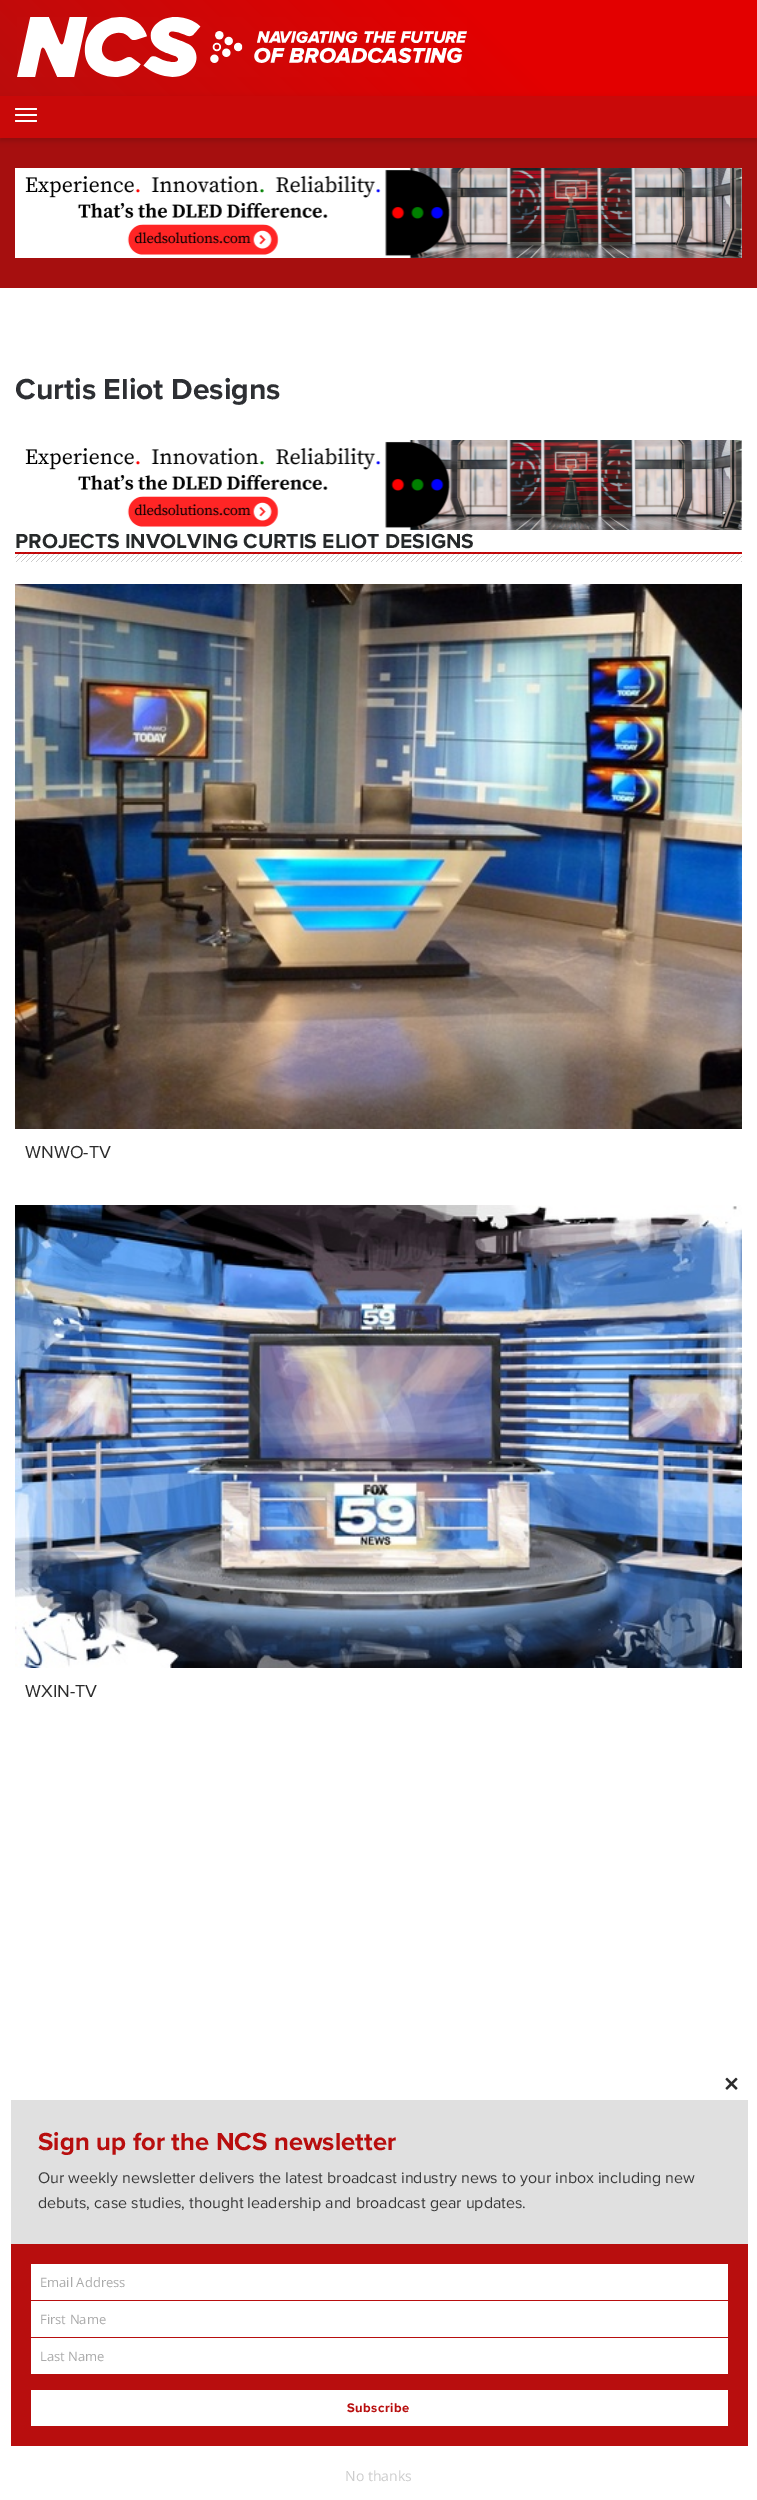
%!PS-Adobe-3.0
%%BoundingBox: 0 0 757 2500
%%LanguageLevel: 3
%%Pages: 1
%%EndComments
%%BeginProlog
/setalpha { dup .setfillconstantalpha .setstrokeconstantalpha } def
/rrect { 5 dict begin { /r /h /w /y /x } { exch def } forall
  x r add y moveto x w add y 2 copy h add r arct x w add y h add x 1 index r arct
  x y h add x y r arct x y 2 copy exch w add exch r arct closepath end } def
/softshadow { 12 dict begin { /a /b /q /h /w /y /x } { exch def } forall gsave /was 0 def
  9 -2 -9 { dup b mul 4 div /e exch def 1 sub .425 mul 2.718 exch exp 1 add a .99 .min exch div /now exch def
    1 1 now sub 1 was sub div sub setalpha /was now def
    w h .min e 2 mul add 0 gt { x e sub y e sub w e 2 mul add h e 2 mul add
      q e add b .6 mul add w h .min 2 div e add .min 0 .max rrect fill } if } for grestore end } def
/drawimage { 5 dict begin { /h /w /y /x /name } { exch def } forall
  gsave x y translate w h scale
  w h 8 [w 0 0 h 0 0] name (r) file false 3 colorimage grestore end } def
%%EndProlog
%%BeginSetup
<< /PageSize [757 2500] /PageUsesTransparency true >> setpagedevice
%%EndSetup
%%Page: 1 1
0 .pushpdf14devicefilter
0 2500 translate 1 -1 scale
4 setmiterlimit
1 setgray
0 0 757 2500 rectfill
gsave newpath 0 0 moveto 757 0 lineto 757 96 lineto 0 96 lineto closepath clip newpath
<< /ShadingType 2 /ColorSpace /DeviceRGB /Coords [155 293 602 -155] /Extend [true true] /Function << /FunctionType 3 /Domain [0 1] /Functions [<< /FunctionType 2 /Domain [0 1] /C0 [0.722 0.055 0.055] /C1 [0.89 0 0] /N 1 >> << /FunctionType 2 /Domain [0 1] /C0 [0.89 0 0] /C1 [0.89 0 0] /N 1 >>] /Bounds [0.67] /Encode [0 1 0 1] >> >> shfill grestore
(images/1.raw) 17 17 450 60 drawimage
0.651 0.059 0.059 setrgbcolor
0 138 757 150 rectfill
0 setgray
0 99 757 42 0 3 0.16 softshadow
0.788 0.035 0.035 setrgbcolor
0 96 757 42 rectfill
1 setgray
15 108 22 2 1 rrect fill
15 114 22 2 1 rrect fill
15 120 22 2 1 rrect fill
(images/2.raw) 15 168 727 90 drawimage
(images/3.raw) 25 440 717 90 drawimage
0.788 0.035 0.039 setrgbcolor
15 552 727 2 rectfill
(images/4.raw) 15 552 727 10 drawimage
(images/5.raw) 15 584 727 545 drawimage
(images/6.raw) 15 1205 727 463 drawimage
(images/7.raw) 725 2077 13 13 drawimage
0.878 setgray
11 2100 737 144 rectfill
0.722 0.055 0.055 setrgbcolor
11 2244 737 202 rectfill
1 setgray
31 2264 697 36 rectfill
31 2301 697 36 rectfill
31 2338 697 36 rectfill
31 2390 697 36 rectfill
/ProximaNova-Bold [30 0 0 -30 0 0] selectfont
0.176 0.184 0.2 setrgbcolor
15 399 moveto (Curtis Eliot Designs) show
/ProximaNova-Bold [21 0 0 -21 0 0] selectfont
0.149 0.161 0.165 setrgbcolor
15 548 moveto (PROJECTS INVOLVING CURTIS ELIOT DESIGNS) show
/ProximaNova-Regular [18 0 0 -18 0 0] selectfont
0.173 setgray
25 1158 moveto (WNWO-TV) show
25 1697 moveto (WXIN-TV) show
/ProximaNova-Bold [25.6 0 0 -25.6 0 0] selectfont
0.722 0.055 0.055 setrgbcolor
38 2150 moveto (Sign up for the NCS newsletter) show
/ProximaNova-Regular [16 0 0 -16 0 0] selectfont
0.227 setgray
38 2183 moveto (Our weekly newsletter delivers the latest broadcast industry news to your inbox including new) show
38 2208 moveto (debuts, case studies, thought leadership and broadcast gear updates.) show
/OpenSans-Regular [13 0 0 -13 0 0] selectfont
0.667 setgray
40 2287 moveto (Email Address) show
40 2324 moveto (First Name) show
40 2361 moveto (Last Name) show
/ProximaNova-Bold [13 0 0 -13 0 0] selectfont
0.722 0.055 0.055 setrgbcolor
347 2412 moveto 0.5 0 (Subscribe) ashow
/OpenSans-Regular [14 0 0 -14 0 0] selectfont
0.8 setgray
345 2481 moveto (No thanks) show
.poppdf14devicefilter showpage
%%EOF
